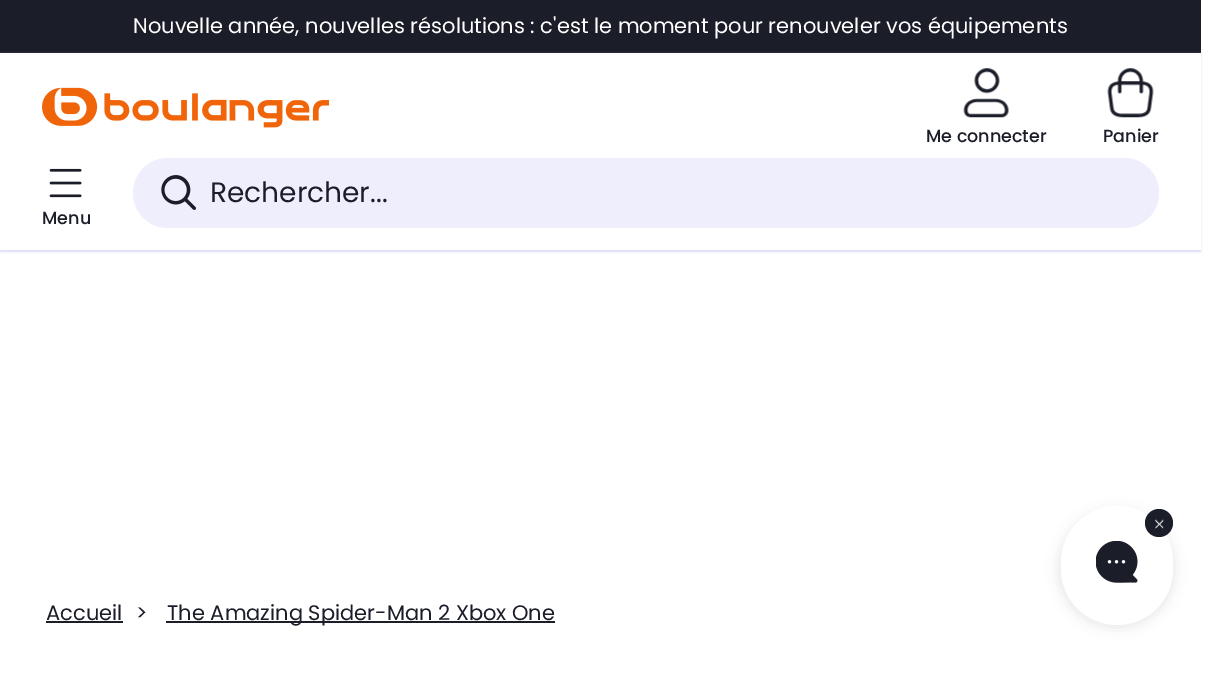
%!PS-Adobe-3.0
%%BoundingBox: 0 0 1231 690
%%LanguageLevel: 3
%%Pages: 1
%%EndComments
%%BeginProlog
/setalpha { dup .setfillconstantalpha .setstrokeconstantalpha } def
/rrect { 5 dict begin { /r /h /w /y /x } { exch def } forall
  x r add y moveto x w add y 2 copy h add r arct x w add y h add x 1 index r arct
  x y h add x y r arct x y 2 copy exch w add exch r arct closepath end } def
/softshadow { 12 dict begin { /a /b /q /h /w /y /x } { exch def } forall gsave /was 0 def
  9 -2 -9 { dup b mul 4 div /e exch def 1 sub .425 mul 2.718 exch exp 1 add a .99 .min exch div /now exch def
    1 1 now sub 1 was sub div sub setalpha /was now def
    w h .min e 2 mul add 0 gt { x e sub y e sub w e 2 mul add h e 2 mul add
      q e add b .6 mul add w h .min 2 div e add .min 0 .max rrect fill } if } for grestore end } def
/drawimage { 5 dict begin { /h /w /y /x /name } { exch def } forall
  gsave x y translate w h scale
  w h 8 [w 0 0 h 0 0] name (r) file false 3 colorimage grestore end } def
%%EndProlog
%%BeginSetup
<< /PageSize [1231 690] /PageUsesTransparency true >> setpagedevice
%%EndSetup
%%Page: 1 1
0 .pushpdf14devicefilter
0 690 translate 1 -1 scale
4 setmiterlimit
1 setgray
0 0 1231 690 rectfill
0.106 0.114 0.161 setrgbcolor
0 0 1201 53 rectfill
0.859 0.859 0.976 setrgbcolor
0 54 1201 198 0 1 1 softshadow
1 setgray
0 53 1201 197 rectfill
(images/1.raw) 42 87 287 41 drawimage
(images/2.raw) 963 68 46 50 drawimage
(images/3.raw) 1107 68 47 50 drawimage
0.937 0.933 0.988 setrgbcolor
newpath 168 158 moveto 210 158 lineto 210 228 lineto 168 228 lineto 148.5 228 133 212.5 133 193 curveto 133 173.5 148.5 158 168 158 curveto closepath fill
(images/4.raw) 161 175 35 35 drawimage
newpath 210 158 moveto 1124 158 lineto 1143.5 158 1159 173.5 1159 193 curveto 1159 212.5 1143.5 228 1124 228 curveto 210 228 lineto closepath fill
(images/5.raw) 49 168 33 30 drawimage
0.106 0.114 0.161 setrgbcolor
46 621 77 2 rectfill
166 621 389 2 rectfill
0 setgray
1059 511 115 116 57.5 6.5 0.1 softshadow
1 setgray
1061 506 112 119 56 rrect fill
(images/6.raw) 1096 541 42 42 drawimage
0.106 0.114 0.161 setrgbcolor
newpath 1159 523 14 0 360 arc closepath fill
(images/7.raw) 1155 519 9 10 drawimage
/Poppins-Regular [21 0 0 -21 0 0] selectfont
1 setgray
133 33 moveto (Nouvelle année, nouvelles résolutions : c'est le moment pour renouveler vos équipements) show
/Poppins-Medium [17.5 0 0 -17.5 0 0] selectfont
0.106 0.114 0.161 setrgbcolor
926 142 moveto (Me connecter) show
1103 142 moveto (Panier) show
/Poppins-Regular [28 0 0 -28 0 0] selectfont
210 202 moveto (Rechercher...) show
/Poppins-Medium [17.5 0 0 -17.5 0 0] selectfont
42 224 moveto (Menu) show
/Poppins-Regular [21 0 0 -21 0 0] selectfont
46 620 moveto (Accueil) show
136 620 moveto (>) show
167 620 moveto (The Amazing Spider-Man 2 Xbox One) show
.poppdf14devicefilter showpage
%%EOF
